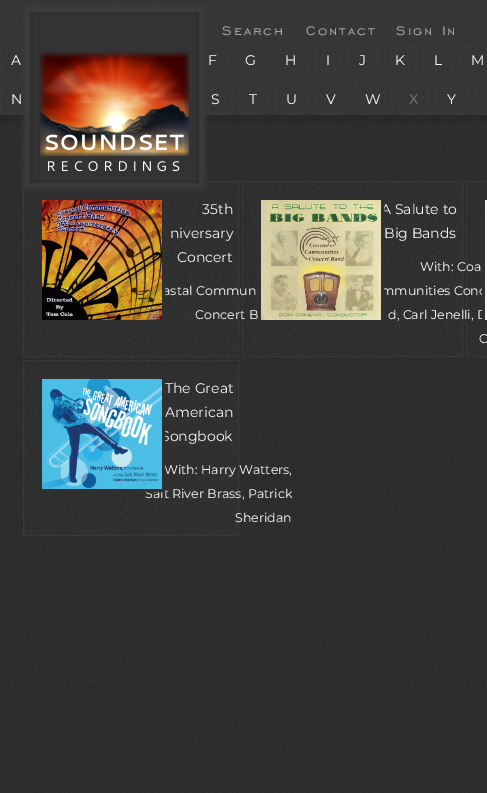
%!PS-Adobe-3.0
%%BoundingBox: 0 0 487 793
%%LanguageLevel: 3
%%Pages: 1
%%EndComments
%%BeginProlog
/setalpha { dup .setfillconstantalpha .setstrokeconstantalpha } def
/rrect { 5 dict begin { /r /h /w /y /x } { exch def } forall
  x r add y moveto x w add y 2 copy h add r arct x w add y h add x 1 index r arct
  x y h add x y r arct x y 2 copy exch w add exch r arct closepath end } def
/softshadow { 12 dict begin { /a /b /q /h /w /y /x } { exch def } forall gsave /was 0 def
  9 -2 -9 { dup b mul 4 div /e exch def 1 sub .425 mul 2.718 exch exp 1 add a .99 .min exch div /now exch def
    1 1 now sub 1 was sub div sub setalpha /was now def
    w h .min e 2 mul add 0 gt { x e sub y e sub w e 2 mul add h e 2 mul add
      q e add b .6 mul add w h .min 2 div e add .min 0 .max rrect fill } if } for grestore end } def
/drawimage { 5 dict begin { /h /w /y /x /name } { exch def } forall
  gsave x y translate w h scale
  w h 8 [w 0 0 h 0 0] name (r) file false 3 colorimage grestore end } def
%%EndProlog
%%BeginSetup
<< /PageSize [487 793] /PageUsesTransparency true >> setpagedevice
%%EndSetup
%%Page: 1 1
0 .pushpdf14devicefilter
0 793 translate 1 -1 scale
4 setmiterlimit
0.165 setgray
0 0 487 793 rectfill
(images/1.raw) 0 115 487 678 drawimage
0.2 setgray
0 0 487 115 rectfill
(images/2.raw) 0 0 487 115 drawimage
0.227 setgray
0.5 45.5 31 29 4.5 rrect stroke
197.5 45.5 29 29 4.5 rrect stroke
0.5 84.5 32 29 4.5 rrect stroke
200.5 84.5 30 29 4.5 rrect stroke
(images/4.raw) 0 115 487 8 drawimage
(images/5.raw) 23 181 216 176 drawimage
0.5 setalpha
0.255 setgray
23.5 181.5 215 175 rectstroke
1 setalpha
0.235 setgray
24 6 181 183 0 2.5 1 softshadow
0.2 setgray
newpath 31.5 13.5 moveto 197.5 13.5 lineto 197.5 181.5 lineto 31.5 181.5 lineto closepath gsave fill grestore
0.188 setgray
3 setlinewidth
stroke
(images/3.raw) 40 52 149 120 drawimage
0.227 setgray
1 setlinewidth
234.5 45.5 32 29 4.5 rrect stroke
274.5 45.5 33 29 4.5 rrect stroke
315.5 45.5 25 29 4.5 rrect stroke
348.5 45.5 28 29 4.5 rrect stroke
384.5 45.5 31 29 4.5 rrect stroke
423.5 45.5 29 29 4.5 rrect stroke
460.5 45.5 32 29 4.5 rrect stroke
238.5 84.5 29 29 4.5 rrect stroke
275.5 84.5 32 29 4.5 rrect stroke
315.5 84.5 31 29 4.5 rrect stroke
354.5 84.5 36 29 4.5 rrect stroke
398.5 84.5 30 29 4.5 rrect stroke
436.5 84.5 30 29 4.5 rrect stroke
474.5 84.5 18 29 4.5 rrect stroke
(images/7.raw) 466 181 21 176 drawimage
0.5 setalpha
0.255 setgray
466.5 181.5 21 175 rectstroke
1 setalpha
(images/8.raw) 242 181 221 176 drawimage
0.5 setalpha
242.5 181.5 220 175 rectstroke
1 setalpha
(images/10.raw) 23 360 216 176 drawimage
0.5 setalpha
23.5 360.5 215 175 rectstroke
/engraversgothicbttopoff-Regular [16 0 0 -16 0 0] selectfont
1 setalpha
0.647 setgray
222 35 moveto 2 0 (Search) ashow
306 35 moveto 2 0 (Contact) ashow
396 35 moveto 2 0 (Sign In) ashow
/Montserrat-Thin [14 0 0 -14 0 0] selectfont
1 setgray
11 65 moveto (A) show
208 65 moveto (F) show
245 65 moveto (G) show
285 65 moveto (H) show
326 65 moveto (I) show
359 65 moveto (J) show
395 65 moveto (K) show
434 65 moveto (L) show
471 65 moveto (M) show
11 104 moveto (N) show
211 104 moveto (S) show
249 104 moveto (T) show
286 104 moveto (U) show
326 104 moveto (V) show
365 104 moveto (W) show
0.502 setgray
409 104 moveto (X) show
1 setgray
447 104 moveto (Y) show
0.969 setgray
202 214 moveto (35th) show
170 238 moveto (niversary) show
177 262 moveto (Concert) show
/Montserrat-Thin [12.6 0 0 -12.6 0 0] selectfont
1 setgray
163 295 moveto (astal Commun) show
0.188 setgray
3 setlinewidth
40.5 198.5 123 123 rectstroke
(images/6.raw) 42 200 120 120 drawimage
1 setgray
195 319 moveto (Concert B) show
/Montserrat-Thin [14 0 0 -14 0 0] selectfont
0.969 setgray
381 214 moveto (A Salute to) show
384 238 moveto (Big Bands) show
/Montserrat-Thin [12.6 0 0 -12.6 0 0] selectfont
1 setgray
420 271 moveto (With: Coa) show
381 295 moveto (mmunities Conc) show
0.188 setgray
259.5 198.5 123 123 rectstroke
(images/9.raw) 261 200 120 120 drawimage
1 setgray
388 319 moveto (d, Carl Jenelli, D) show
0.188 setgray
483.5 198.5 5 123 rectstroke
1 setgray
485 200 2 120 rectfill
479 343 moveto (C) show
/Montserrat-Thin [14 0 0 -14 0 0] selectfont
0.969 setgray
165 393 moveto (The Great) show
165 417 moveto (American) show
161 441 moveto (Songbook) show
/Montserrat-Thin [12.6 0 0 -12.6 0 0] selectfont
1 setgray
164 474 moveto (With: Harry Watters,) show
145 498 moveto (Salt River Brass, Patrick) show
0.188 setgray
40.5 377.5 123 113 rectstroke
(images/11.raw) 42 379 120 110 drawimage
1 setgray
235 522 moveto (Sheridan) show
.poppdf14devicefilter showpage
%%EOF
